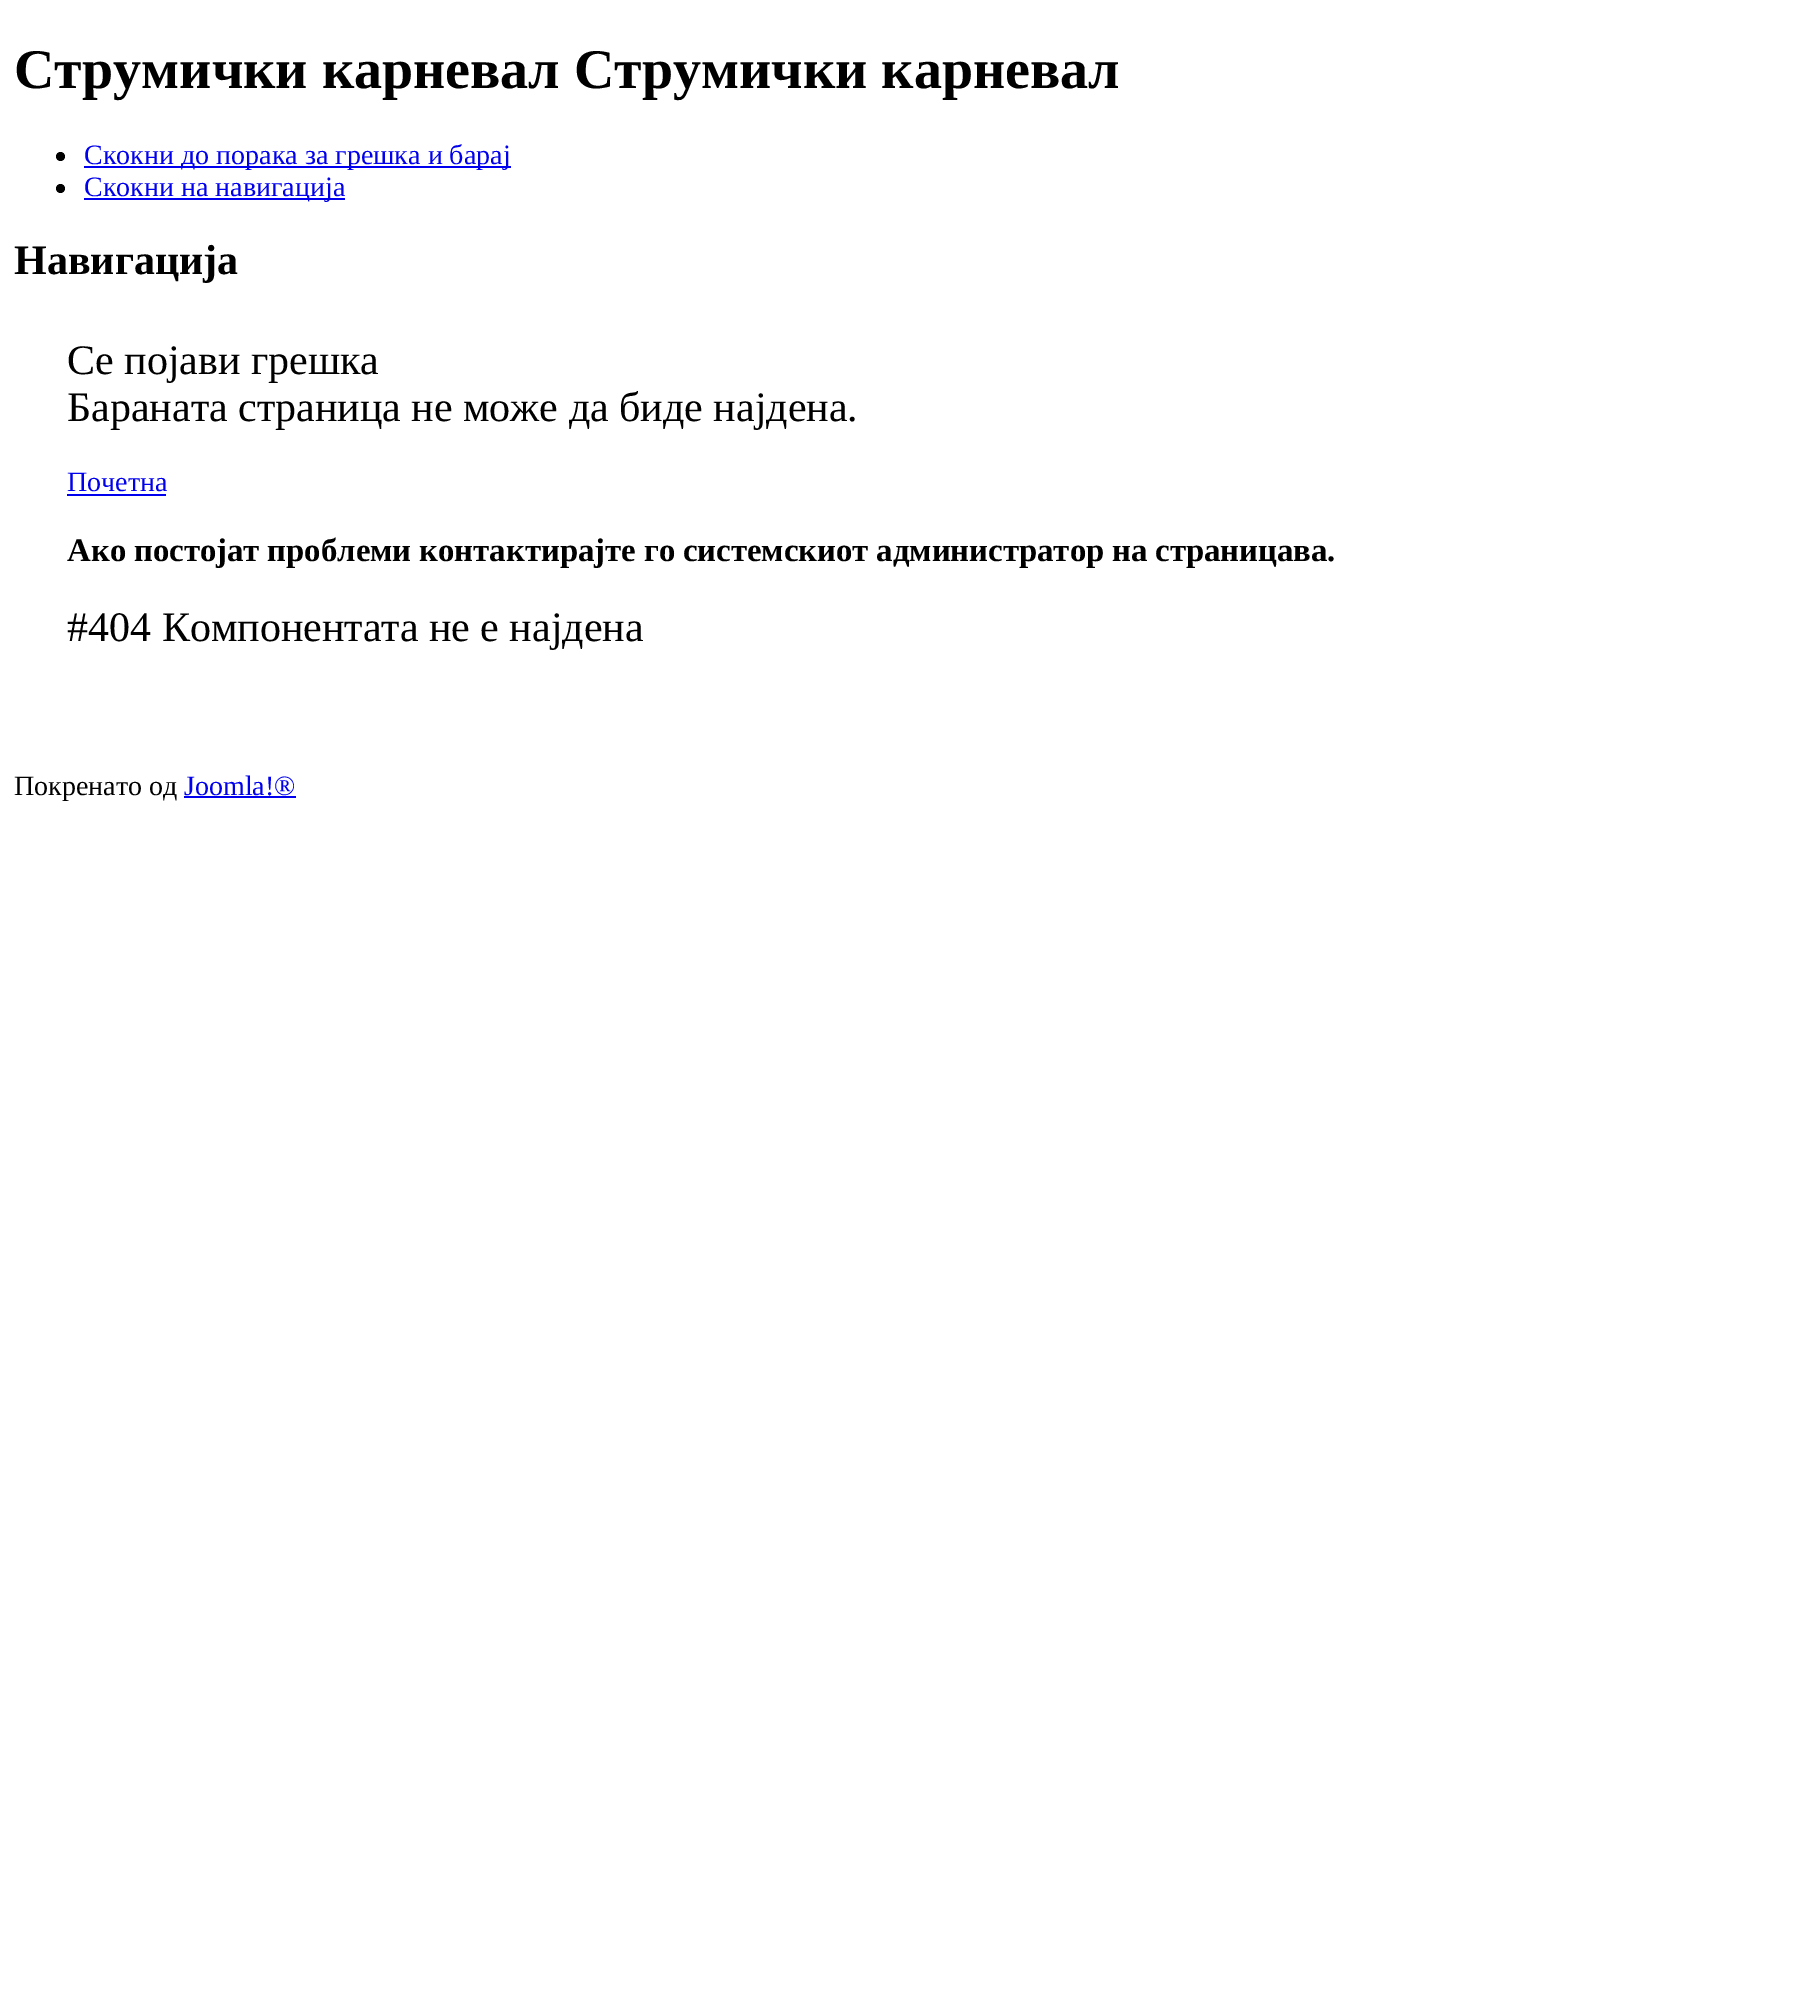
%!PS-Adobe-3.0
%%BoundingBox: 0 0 1806 2014
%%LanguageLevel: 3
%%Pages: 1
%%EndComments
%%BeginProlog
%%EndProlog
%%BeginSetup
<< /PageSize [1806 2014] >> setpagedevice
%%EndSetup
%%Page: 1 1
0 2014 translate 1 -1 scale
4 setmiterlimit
1 setgray
0 0 1806 2014 rectfill
0 setgray
newpath 60.5 156.5 4.5 0 360 arc closepath fill
0 0 0.933 setrgbcolor
84 166 427 2 rectfill
0 setgray
newpath 60.5 188.5 4.5 0 360 arc closepath fill
0 0 0.933 setrgbcolor
84 198 261 2 rectfill
67 494 99 2 rectfill
184 796 112 2 rectfill
/LiberationSerif-Bold [56 0 0 -56 0 0] selectfont
0 setgray
14 88 moveto (Струмички карневал Струмички карневал) show
/LiberationSerif-Regular [28 0 0 -28 0 0] selectfont
0 0 0.933 setrgbcolor
84 164 moveto (Скокни до порака за грешка и барај) show
84 196 moveto (Скокни на навигација) show
/LiberationSerif-Bold [42 0 0 -42 0 0] selectfont
0 setgray
14 274 moveto (Навигација) show
/LiberationSerif-Regular [42 0 0 -42 0 0] selectfont
67 374 moveto (Се појави грешка) show
67 421 moveto (Бараната страница не може да биде најдена.) show
/LiberationSerif-Regular [28 0 0 -28 0 0] selectfont
0 0 0.933 setrgbcolor
67 491 moveto (Почетна) show
/LiberationSerif-Bold [32.75 0 0 -32.75 0 0] selectfont
0 setgray
67 561 moveto -0.25 0 32 (Ако постојат проблеми контактирајте го системскиот администратор на страницава.) widthshow
/LiberationSerif-Regular [42 0 0 -42 0 0] selectfont
67 641 moveto (#404 Компонентата не е најдена) show
/LiberationSerif-Regular [28 0 0 -28 0 0] selectfont
14 795 moveto (Покренато од) show
0 0 0.933 setrgbcolor
184 795 moveto (Joomla!®) show
showpage
%%EOF
